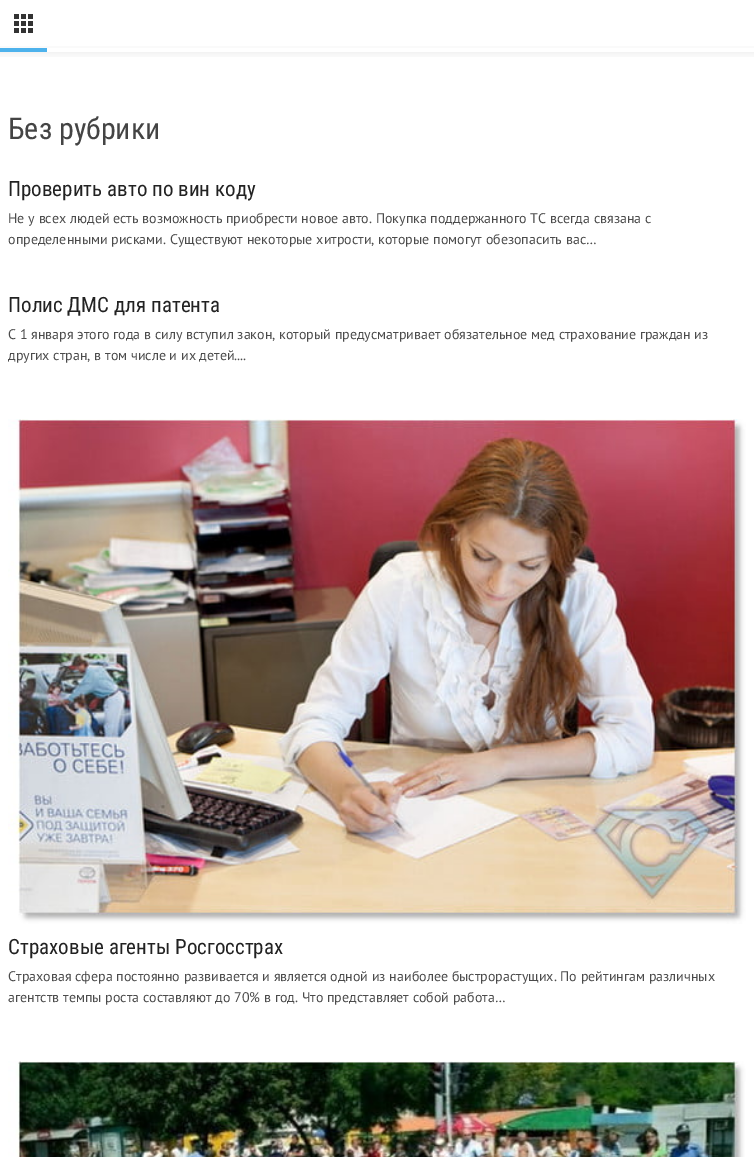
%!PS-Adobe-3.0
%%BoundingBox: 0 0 754 1157
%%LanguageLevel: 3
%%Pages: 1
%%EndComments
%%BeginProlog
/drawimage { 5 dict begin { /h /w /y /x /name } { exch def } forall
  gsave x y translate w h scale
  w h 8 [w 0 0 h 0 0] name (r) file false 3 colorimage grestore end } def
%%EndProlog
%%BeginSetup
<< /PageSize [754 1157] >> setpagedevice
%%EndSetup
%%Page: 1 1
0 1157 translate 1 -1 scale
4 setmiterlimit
1 setgray
0 0 754 1157 rectfill
0.98 setgray
0 46 754 2 rectfill
0.302 0.698 0.925 setrgbcolor
0 48 47 4 rectfill
(images/1.raw) 14 14 19 19 drawimage
(images/2.raw) 0 52 754 5 drawimage
(images/3.raw) 8 409 738 515 drawimage
(images/4.raw) 8 1051 738 106 drawimage
/RobotoCondensed-Regular [30 0 0 -30 0 0] selectfont
0.267 setgray
8 139 moveto (Без рубрики) show
/RobotoCondensed-Regular [21 0 0 -21 0 0] selectfont
0.133 setgray
8 196 moveto (Проверить авто по вин коду) show
/PTSans-Regular [14 0 0 -14 0 0] selectfont
0.294 setgray
8 223 moveto (Не у всех людей есть возможность приобрести новое авто. Покупка поддержанного ТС всегда связана с) show
8 244 moveto (определенными рисками. Существуют некоторые хитрости, которые помогут обезопасить вас…) show
/RobotoCondensed-Regular [21 0 0 -21 0 0] selectfont
0.133 setgray
8 312 moveto (Полис ДМС для патента) show
/PTSans-Regular [14 0 0 -14 0 0] selectfont
0.294 setgray
8 339 moveto (С 1 января этого года в силу вступил закон, который предусматривает обязательное мед страхование граждан из) show
8 360 moveto (других стран, в том числе и их детей....) show
/RobotoCondensed-Regular [21 0 0 -21 0 0] selectfont
0.133 setgray
8 954 moveto (Страховые агенты Росгосстрах) show
/PTSans-Regular [14 0 0 -14 0 0] selectfont
0.294 setgray
8 981 moveto (Страховая сфера постоянно развивается и является одной из наиболее быстрорастущих. По рейтингам различных) show
8 1002 moveto (агентств темпы роста составляют до 70% в год. Что представляет собой работа…) show
showpage
%%EOF
